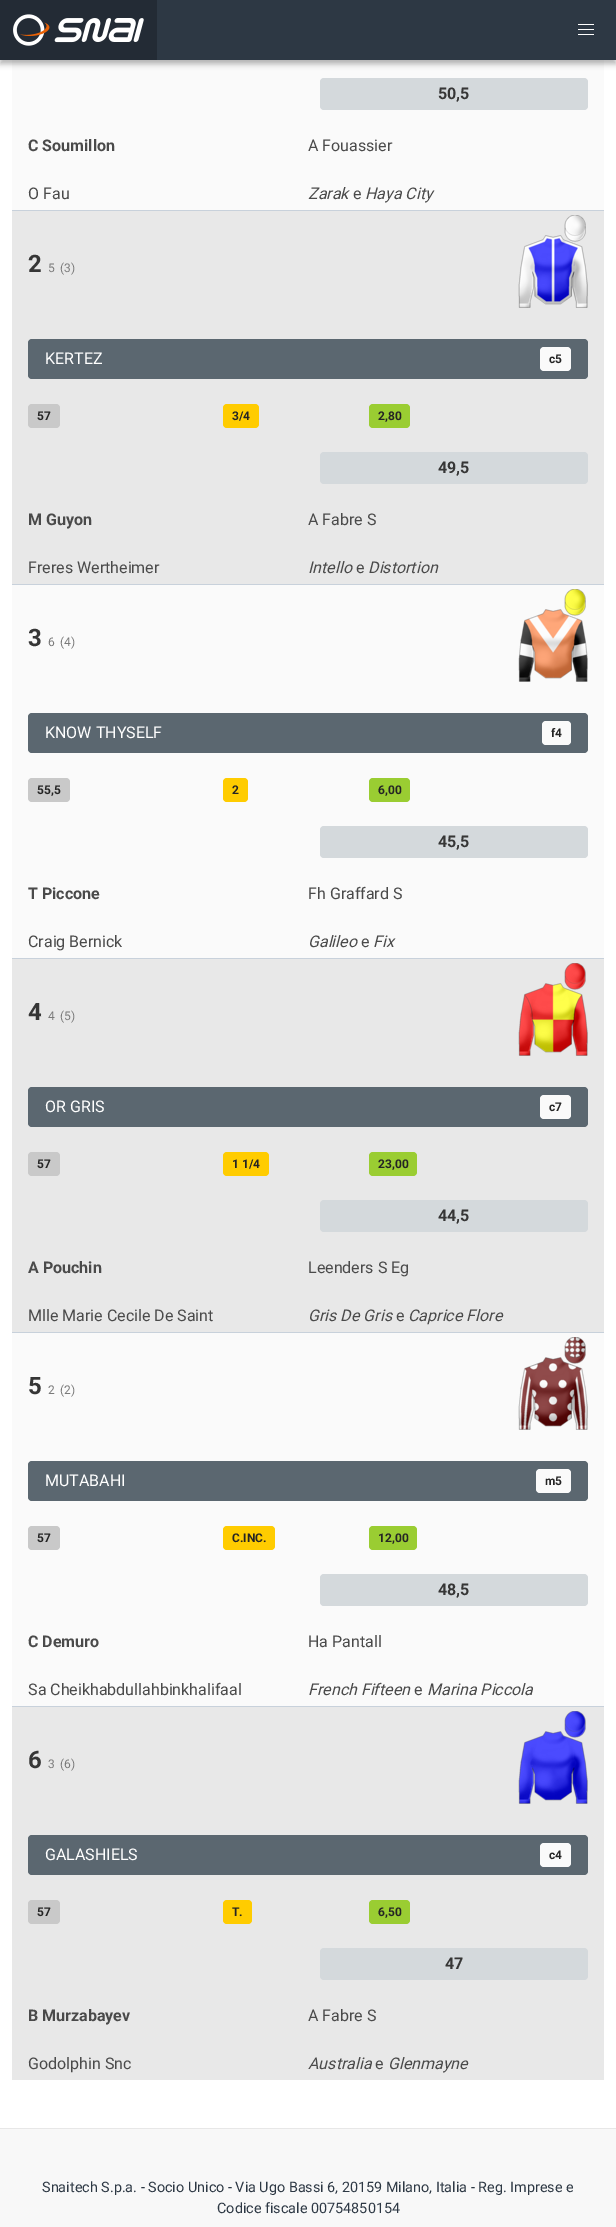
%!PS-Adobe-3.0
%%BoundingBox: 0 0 616 2227
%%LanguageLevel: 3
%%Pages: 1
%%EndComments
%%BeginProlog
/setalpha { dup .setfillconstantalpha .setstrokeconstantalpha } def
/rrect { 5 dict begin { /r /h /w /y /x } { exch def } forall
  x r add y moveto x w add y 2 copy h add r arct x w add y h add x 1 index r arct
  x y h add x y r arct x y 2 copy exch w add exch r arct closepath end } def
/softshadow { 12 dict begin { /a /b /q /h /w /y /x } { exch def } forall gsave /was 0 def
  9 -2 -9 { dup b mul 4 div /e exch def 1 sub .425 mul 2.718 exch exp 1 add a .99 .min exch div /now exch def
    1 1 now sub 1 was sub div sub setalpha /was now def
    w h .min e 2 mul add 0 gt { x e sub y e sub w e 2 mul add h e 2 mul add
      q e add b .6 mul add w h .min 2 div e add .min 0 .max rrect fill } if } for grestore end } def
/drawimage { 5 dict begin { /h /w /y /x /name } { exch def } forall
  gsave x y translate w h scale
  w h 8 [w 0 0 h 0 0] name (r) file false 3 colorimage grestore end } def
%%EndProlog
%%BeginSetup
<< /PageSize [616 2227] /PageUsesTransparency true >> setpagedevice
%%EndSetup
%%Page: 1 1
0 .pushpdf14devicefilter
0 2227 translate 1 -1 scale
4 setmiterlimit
1 setgray
0 0 616 2227 rectfill
0.98 setgray
12 60 592 150 rectfill
0 setgray
0 4 616 60 0 3 0.3 softshadow
0.176 0.22 0.267 setrgbcolor
157 0 459 60 rectfill
0.137 0.169 0.208 setrgbcolor
0 0 157 60 rectfill
(images/1.raw) 13 14 131 32 drawimage
1 setgray
578 24 16 1 rectfill
578 29 16 1 rectfill
578 34 16 1 rectfill
0.784 0.82 0.859 setrgbcolor
12 210 592 1 rectfill
0.831 0.851 0.863 setrgbcolor
320 78 268 32 4 rrect fill
0.91 setgray
12 211 592 373 rectfill
0.784 0.82 0.859 setrgbcolor
12 584 592 1 rectfill
(images/2.raw) 518 215 70 93 drawimage
0.357 0.404 0.439 setrgbcolor
28 339 560 40 4 rrect fill
0.98 setgray
540 347 31 24 4 rrect fill
0.788 setgray
28 404 32 24 4 rrect fill
1 0.8 0 setrgbcolor
223 404 36 24 4 rrect fill
0.604 0.804 0.196 setrgbcolor
369 404 41 24 4 rrect fill
0.831 0.851 0.863 setrgbcolor
320 452 268 32 4 rrect fill
0.98 setgray
12 585 592 373 rectfill
0.784 0.82 0.859 setrgbcolor
12 958 592 1 rectfill
(images/3.raw) 518 589 70 93 drawimage
0.357 0.404 0.439 setrgbcolor
28 713 560 40 4 rrect fill
0.98 setgray
542 721 29 24 4 rrect fill
0.788 setgray
28 778 42 24 4 rrect fill
1 0.8 0 setrgbcolor
223 778 25 24 4 rrect fill
0.604 0.804 0.196 setrgbcolor
369 778 41 24 4 rrect fill
0.831 0.851 0.863 setrgbcolor
320 826 268 32 4 rrect fill
0.91 setgray
12 959 592 373 rectfill
0.784 0.82 0.859 setrgbcolor
12 1332 592 1 rectfill
(images/4.raw) 518 963 70 93 drawimage
0.357 0.404 0.439 setrgbcolor
28 1087 560 40 4 rrect fill
0.98 setgray
540 1095 31 24 4 rrect fill
0.788 setgray
28 1152 32 24 4 rrect fill
1 0.8 0 setrgbcolor
223 1152 46 24 4 rrect fill
0.604 0.804 0.196 setrgbcolor
369 1152 48 24 4 rrect fill
0.831 0.851 0.863 setrgbcolor
320 1200 268 32 4 rrect fill
0.98 setgray
12 1333 592 373 rectfill
0.784 0.82 0.859 setrgbcolor
12 1706 592 1 rectfill
(images/5.raw) 518 1337 70 93 drawimage
0.357 0.404 0.439 setrgbcolor
28 1461 560 40 4 rrect fill
0.98 setgray
536 1469 35 24 4 rrect fill
0.788 setgray
28 1526 32 24 4 rrect fill
1 0.8 0 setrgbcolor
223 1526 52 24 4 rrect fill
0.604 0.804 0.196 setrgbcolor
369 1526 48 24 4 rrect fill
0.831 0.851 0.863 setrgbcolor
320 1574 268 32 4 rrect fill
0.91 setgray
12 1707 592 373 rectfill
(images/6.raw) 518 1711 70 93 drawimage
0.357 0.404 0.439 setrgbcolor
28 1835 560 40 4 rrect fill
0.98 setgray
540 1843 31 24 4 rrect fill
0.788 setgray
28 1900 32 24 4 rrect fill
1 0.8 0 setrgbcolor
223 1900 29 24 4 rrect fill
0.604 0.804 0.196 setrgbcolor
369 1900 41 24 4 rrect fill
0.831 0.851 0.863 setrgbcolor
320 1948 268 32 4 rrect fill
0.973 setgray
0 2129 616 98 rectfill
0.906 setgray
0 2128 616 1 rectfill
/Roboto-Bold [16 0 0 -16 0 0] selectfont
0.212 setgray
438 99 moveto (50,5) show
0.29 setgray
28 151 moveto (C Soumillon) show
/Roboto-Regular [16 0 0 -16 0 0] selectfont
308 151 moveto (A Fouassier) show
28 199 moveto (O Fau) show
/Roboto-Italic [16 0 0 -16 0 0] selectfont
308 199 moveto (Zarak) show
/Roboto-Regular [16 0 0 -16 0 0] selectfont
353 199 moveto (e) show
/Roboto-Italic [16 0 0 -16 0 0] selectfont
365 199 moveto (Haya City) show
/Roboto-Bold [24 0 0 -24 0 0] selectfont
0.212 setgray
28 272 moveto (2) show
/Roboto-Regular [12 0 0 -12 0 0] selectfont
0.478 setgray
48 272 moveto (5) show
60 272 moveto (\(3\)) show
/Roboto-Regular [16 0 0 -16 0 0] selectfont
1 setgray
45 364 moveto (KERTEZ) show
/Roboto-Bold [12 0 0 -12 0 0] selectfont
0.141 setgray
549 363 moveto (c5) show
37 420 moveto (57) show
232 420 moveto (3/4) show
378 420 moveto (2,80) show
/Roboto-Bold [16 0 0 -16 0 0] selectfont
0.212 setgray
438 473 moveto (49,5) show
0.29 setgray
28 525 moveto (M Guyon) show
/Roboto-Regular [16 0 0 -16 0 0] selectfont
308 525 moveto (A Fabre S) show
28 573 moveto (Freres Wertheimer) show
/Roboto-Italic [16 0 0 -16 0 0] selectfont
308 573 moveto (Intello) show
/Roboto-Regular [16 0 0 -16 0 0] selectfont
356 573 moveto (e) show
/Roboto-Italic [16 0 0 -16 0 0] selectfont
368 573 moveto (Distortion) show
/Roboto-Bold [24 0 0 -24 0 0] selectfont
0.212 setgray
28 646 moveto (3) show
/Roboto-Regular [12 0 0 -12 0 0] selectfont
0.478 setgray
48 646 moveto (6) show
60 646 moveto (\(4\)) show
/Roboto-Regular [16 0 0 -16 0 0] selectfont
1 setgray
45 738 moveto (KNOW THYSELF) show
/Roboto-Bold [12 0 0 -12 0 0] selectfont
0.141 setgray
551 737 moveto (f4) show
37 794 moveto (55,5) show
232 794 moveto (2) show
378 794 moveto (6,00) show
/Roboto-Bold [16 0 0 -16 0 0] selectfont
0.212 setgray
438 847 moveto (45,5) show
0.29 setgray
28 899 moveto (T Piccone) show
/Roboto-Regular [16 0 0 -16 0 0] selectfont
308 899 moveto (Fh Graffard S) show
28 947 moveto (Craig Bernick) show
/Roboto-Italic [16 0 0 -16 0 0] selectfont
308 947 moveto (Galileo) show
/Roboto-Regular [16 0 0 -16 0 0] selectfont
361 947 moveto (e) show
/Roboto-Italic [16 0 0 -16 0 0] selectfont
373 947 moveto (Fix) show
/Roboto-Bold [24 0 0 -24 0 0] selectfont
0.212 setgray
28 1020 moveto (4) show
/Roboto-Regular [12 0 0 -12 0 0] selectfont
0.478 setgray
48 1020 moveto (4) show
60 1020 moveto (\(5\)) show
/Roboto-Regular [16 0 0 -16 0 0] selectfont
1 setgray
45 1112 moveto (OR GRIS) show
/Roboto-Bold [12 0 0 -12 0 0] selectfont
0.141 setgray
549 1111 moveto (c7) show
37 1168 moveto (57) show
232 1168 moveto (1 1/4) show
378 1168 moveto (23,00) show
/Roboto-Bold [16 0 0 -16 0 0] selectfont
0.212 setgray
438 1221 moveto (44,5) show
0.29 setgray
28 1273 moveto (A Pouchin) show
/Roboto-Regular [16 0 0 -16 0 0] selectfont
308 1273 moveto (Leenders S Eg) show
28 1321 moveto (Mlle Marie Cecile De Saint) show
/Roboto-Italic [16 0 0 -16 0 0] selectfont
308 1321 moveto (Gris De Gris) show
/Roboto-Regular [16 0 0 -16 0 0] selectfont
396 1321 moveto (e) show
/Roboto-Italic [16 0 0 -16 0 0] selectfont
408 1321 moveto (Caprice Flore) show
/Roboto-Bold [24 0 0 -24 0 0] selectfont
0.212 setgray
28 1394 moveto (5) show
/Roboto-Regular [12 0 0 -12 0 0] selectfont
0.478 setgray
48 1394 moveto (2) show
60 1394 moveto (\(2\)) show
/Roboto-Regular [16 0 0 -16 0 0] selectfont
1 setgray
45 1486 moveto (MUTABAHI) show
/Roboto-Bold [12 0 0 -12 0 0] selectfont
0.141 setgray
545 1485 moveto (m5) show
37 1542 moveto (57) show
232 1542 moveto (C.INC.) show
378 1542 moveto (12,00) show
/Roboto-Bold [16 0 0 -16 0 0] selectfont
0.212 setgray
438 1595 moveto (48,5) show
0.29 setgray
28 1647 moveto (C Demuro) show
/Roboto-Regular [16 0 0 -16 0 0] selectfont
308 1647 moveto (Ha Pantall) show
28 1695 moveto (Sa Cheikhabdullahbinkhalifaal) show
/Roboto-Italic [16 0 0 -16 0 0] selectfont
308 1695 moveto (French Fifteen) show
/Roboto-Regular [16 0 0 -16 0 0] selectfont
414 1695 moveto (e) show
/Roboto-Italic [16 0 0 -16 0 0] selectfont
427 1695 moveto (Marina Piccola) show
/Roboto-Bold [24 0 0 -24 0 0] selectfont
0.212 setgray
28 1768 moveto (6) show
/Roboto-Regular [12 0 0 -12 0 0] selectfont
0.478 setgray
48 1768 moveto (3) show
60 1768 moveto (\(6\)) show
/Roboto-Regular [16 0 0 -16 0 0] selectfont
1 setgray
45 1860 moveto (GALASHIELS) show
/Roboto-Bold [12 0 0 -12 0 0] selectfont
0.141 setgray
549 1859 moveto (c4) show
37 1916 moveto (57) show
232 1916 moveto (T.) show
378 1916 moveto (6,50) show
/Roboto-Bold [16 0 0 -16 0 0] selectfont
0.212 setgray
445 1969 moveto (47) show
0.29 setgray
28 2021 moveto (B Murzabayev) show
/Roboto-Regular [16 0 0 -16 0 0] selectfont
308 2021 moveto (A Fabre S) show
28 2069 moveto (Godolphin Snc) show
/Roboto-Italic [16 0 0 -16 0 0] selectfont
308 2069 moveto (Australia) show
/Roboto-Regular [16 0 0 -16 0 0] selectfont
375 2069 moveto (e) show
/Roboto-Italic [16 0 0 -16 0 0] selectfont
388 2069 moveto (Glenmayne) show
/Roboto-Regular [14.4 0 0 -14.4 0 0] selectfont
0.176 0.22 0.267 setrgbcolor
42 2192 moveto (Snaitech S.p.a. - Socio Unico - Via Ugo Bassi 6, 20159 Milano, Italia - Reg. Imprese e) show
217 2213 moveto (Codice fiscale 00754850154) show
.poppdf14devicefilter showpage
%%EOF
